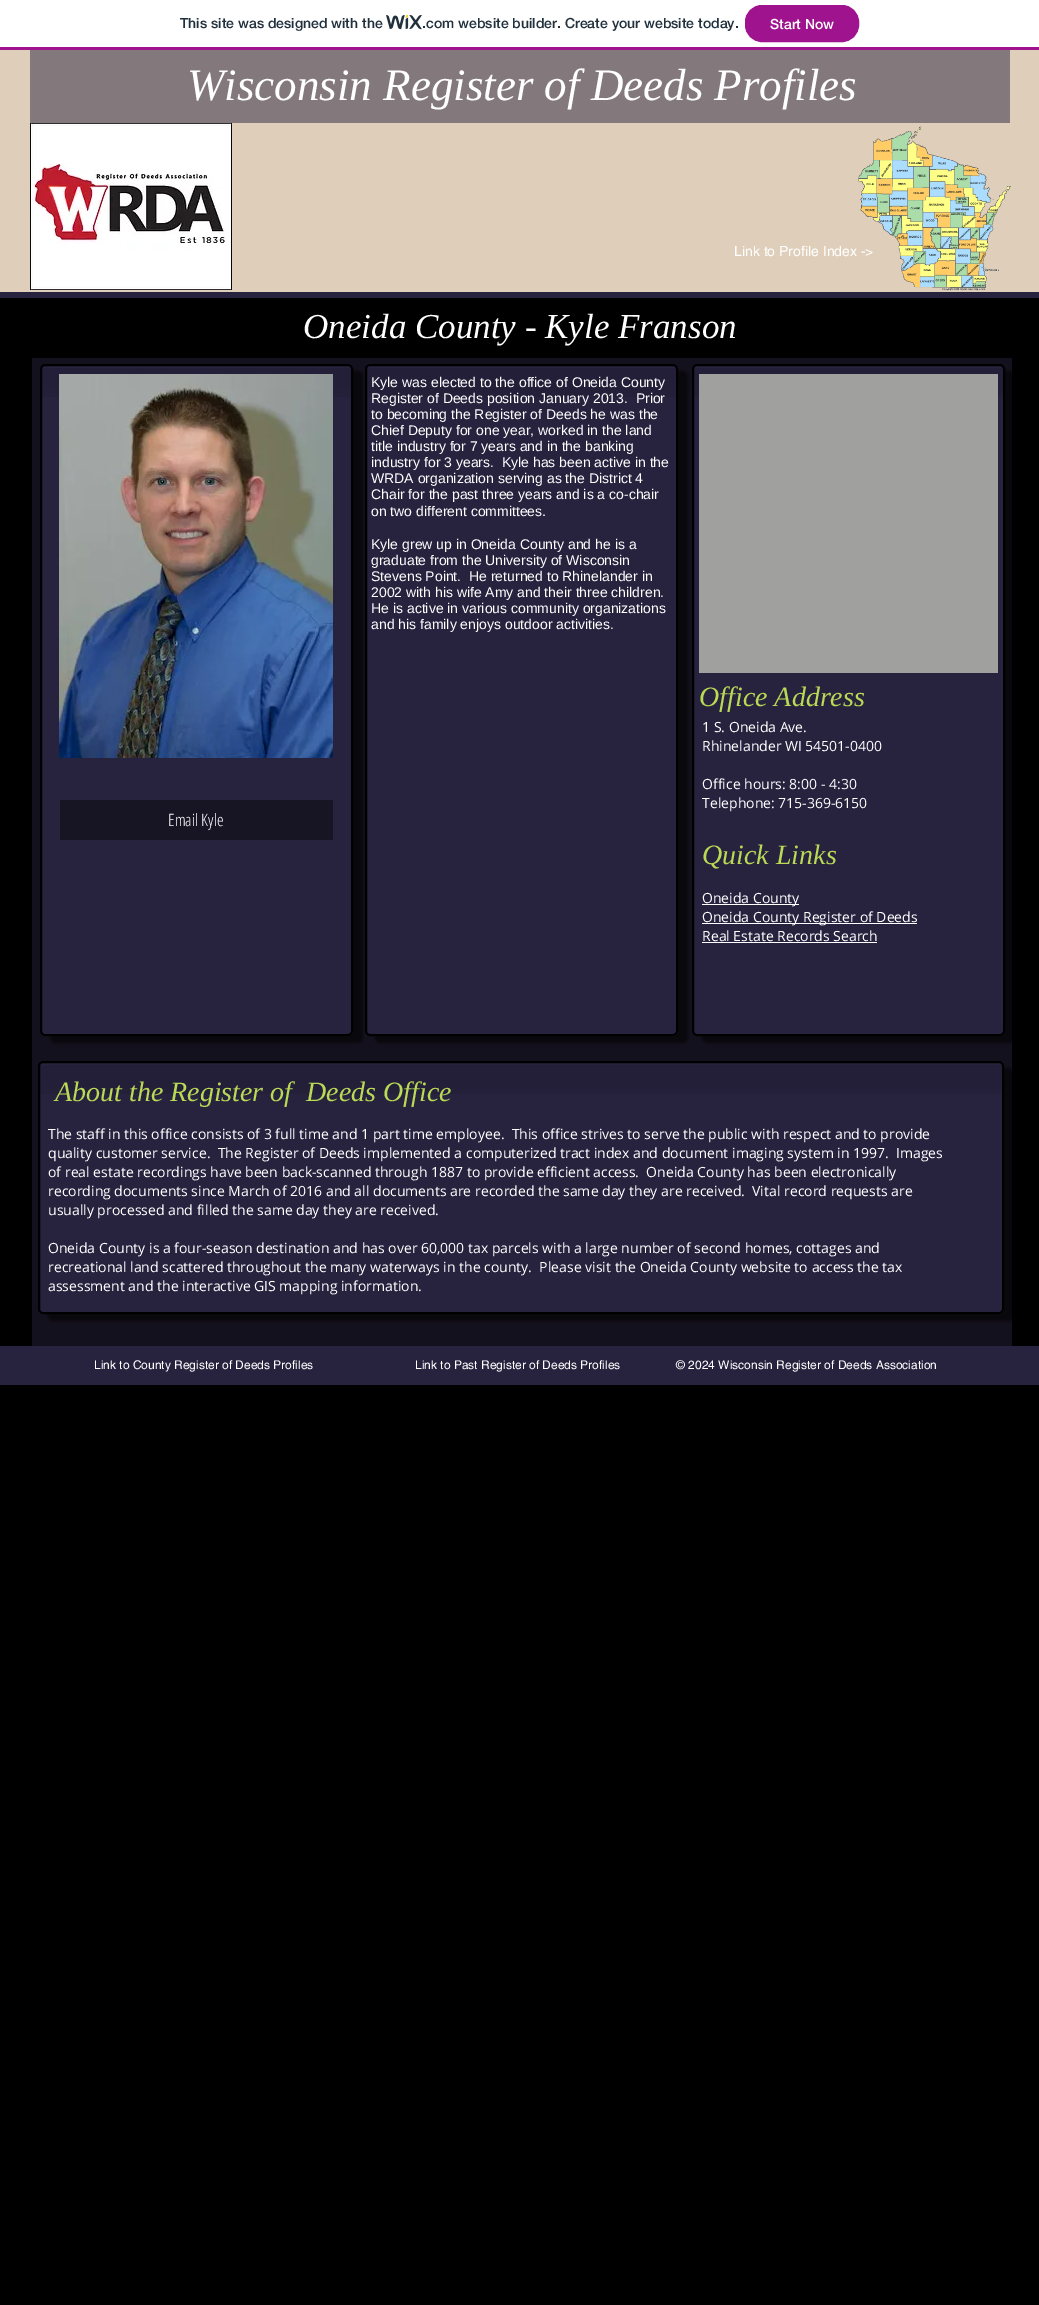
%!PS-Adobe-3.0
%%BoundingBox: 0 0 1039 2305
%%LanguageLevel: 3
%%Pages: 1
%%EndComments
%%BeginProlog
/setalpha { dup .setfillconstantalpha .setstrokeconstantalpha } def
/rrect { 5 dict begin { /r /h /w /y /x } { exch def } forall
  x r add y moveto x w add y 2 copy h add r arct x w add y h add x 1 index r arct
  x y h add x y r arct x y 2 copy exch w add exch r arct closepath end } def
/softshadow { 12 dict begin { /a /b /q /h /w /y /x } { exch def } forall gsave /was 0 def
  9 -2 -9 { dup b mul 4 div /e exch def 1 sub .425 mul 2.718 exch exp 1 add a .99 .min exch div /now exch def
    1 1 now sub 1 was sub div sub setalpha /was now def
    w h .min e 2 mul add 0 gt { x e sub y e sub w e 2 mul add h e 2 mul add
      q e add b .6 mul add w h .min 2 div e add .min 0 .max rrect fill } if } for grestore end } def
/drawimage { 5 dict begin { /h /w /y /x /name } { exch def } forall
  gsave x y translate w h scale
  w h 8 [w 0 0 h 0 0] name (r) file false 3 colorimage grestore end } def
%%EndProlog
%%BeginSetup
<< /PageSize [1039 2305] /PageUsesTransparency true >> setpagedevice
%%EndSetup
%%Page: 1 1
0 .pushpdf14devicefilter
0 2305 translate 1 -1 scale
4 setmiterlimit
1 setgray
0 0 1039 2305 rectfill
0.627 0.075 0.557 setrgbcolor
0 47 1039 3 rectfill
(images/1.raw) 386 15 36 15 drawimage
745.5 5.5 113 36 16.5 rrect gsave fill grestore
stroke
0.875 0.812 0.729 setrgbcolor
0 50 1039 242 rectfill
0.514 0.475 0.486 setrgbcolor
30 50 980 73 rectfill
(images/2.raw) 30 123 202 167 drawimage
(images/3.raw) 858 126 153 165 drawimage
0.153 0.133 0.243 setrgbcolor
0 292 1039 6 rectfill
0 setgray
0 298 1039 2007 rectfill
0.078 0.067 0.122 setrgbcolor
32 358 980 988 rectfill
0 setgray
375 371 313 672 5 2 0.6 softshadow
50 371 313 672 5 2 0.6 softshadow
0.153 0.133 0.243 setrgbcolor
365 364 313 672 5 rrect fill
(images/4.raw) 365 368 313 29 drawimage
0 setgray
2 setlinewidth
366 365 311 670 4 rrect stroke
0.153 0.133 0.243 setrgbcolor
40 364 313 672 5 rrect fill
(images/4.raw) 40 368 313 29 drawimage
0 setgray
41 365 311 670 4 rrect stroke
(images/5.raw) 59 374 274 384 drawimage
0.09 0.078 0.141 setrgbcolor
60 800 273 40 rectfill
0 setgray
702 371 313 672 5 2 0.6 softshadow
0.153 0.133 0.243 setrgbcolor
692 364 313 672 5 rrect fill
(images/4.raw) 692 368 313 29 drawimage
0 setgray
693 365 311 670 4 rrect stroke
0.627 0.627 0.624 setrgbcolor
699 374 299 299 rectfill
1 setgray
702 904 97 1 rectfill
702 923 215 1 rectfill
702 942 175 1 rectfill
0 setgray
48 1068 966 253 5 2 0.6 softshadow
0.153 0.133 0.243 setrgbcolor
38 1061 966 253 5 rrect fill
(images/6.raw) 38 1065 966 29 drawimage
0 setgray
39 1062 964 251 4 rrect stroke
0.153 0.133 0.243 setrgbcolor
0 1346 1039 39 rectfill
/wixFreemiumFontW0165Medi-Medium [14 0 0 -14 0 0] selectfont
0.125 0.188 0.235 setrgbcolor
180 28 moveto (This site was designed with the) show
422 28 moveto (.com website builder. Create your website today.) show
1 setgray
770 29 moveto (Start Now) show
/LiberationSerif-Italic [45 0 0 -45 0 0] selectfont
187 100 moveto (Wisconsin Register of Deeds Profiles) show
/helvetica-Regular [14 0 0 -14 0 0] selectfont
734 256 moveto (Link to Profile Index ->) show
/LiberationSerif-Italic [35 0 0 -35 0 0] selectfont
303 338 moveto (Oneida County - Kyle Franson) show
/LiberationSans-Regular [14 0 0 -14 0 0] selectfont
371 387 moveto (Kyle was elected to the office of Oneida County) show
371 403 moveto (Register of Deeds position January 2013.  Prior) show
371 419 moveto (to becoming the Register of Deeds he was the) show
371 435 moveto (Chief Deputy for one year, worked in the land) show
371 451 moveto (title industry for 7 years and in the banking) show
371 467 moveto (industry for 3 years.  Kyle has been active in the) show
371 483 moveto (WRDA organization serving as the District 4) show
371 499 moveto (Chair for the past three years and is a co-chair) show
371 516 moveto (on two different committees) show
/LiberationSans-Regular [15 0 0 -15 0 0] selectfont
542 516 moveto (.) show
/LiberationSans-Regular [14 0 0 -14 0 0] selectfont
371 549 moveto (Kyle grew up in Oneida County and he is a) show
371 565 moveto (graduate from the University of Wisconsin) show
371 581 moveto (Stevens Point.  He returned to Rhinelander in) show
371 597 moveto (2002 with his wife Amy and their three children.) show
371 613 moveto (He is active in various community organizations) show
371 629 moveto (and his family enjoys outdoor activities.) show
/OpenSansCondensed-Light [17 0 0 -17 0 0] selectfont
168 826 moveto (Email Kyle) show
/LiberationSerif-Italic [28 0 0 -28 0 0] selectfont
0.729 0.855 0.333 setrgbcolor
699 706 moveto (Office Address) show
/OpenSans-Regular [14 0 0 -14 0 0] selectfont
1 setgray
702 732 moveto (1 S. Oneida Ave.) show
702 751 moveto (Rhinelander WI 54501-0400) show
702 789 moveto (Office hours: 8:00 - 4:30) show
702 808 moveto (Telephone: 715-369-6150) show
/LiberationSerif-Italic [28 0 0 -28 0 0] selectfont
0.729 0.855 0.333 setrgbcolor
702 864 moveto (Quick Links) show
/OpenSans-Regular [14 0 0 -14 0 0] selectfont
1 setgray
702 903 moveto (Oneida County) show
702 922 moveto (Oneida County Register of Deeds) show
702 941 moveto (Real Estate Records Search) show
/LiberationSerif-Italic [28 0 0 -28 0 0] selectfont
0.729 0.855 0.333 setrgbcolor
55 1101 moveto (About the Register of  Deeds Office) show
/OpenSans-Regular [14 0 0 -14 0 0] selectfont
1 setgray
48 1139 moveto (The staff in this office consists of 3 full time and 1 part time employee.  This office strives to serve the public with respect and to provide) show
48 1158 moveto (quality customer service.  The Register of Deeds implemented a computerized tract index and document imaging system in 1997.  Images) show
48 1177 moveto (of real estate recordings have been back-scanned through 1887 to provide efficient access.  Oneida County has been electronically) show
48 1196 moveto (recording documents since March of 2016 and all documents are recorded the same day they are received.  Vital record requests are) show
48 1215 moveto (usually processed and filled the same day they are received.) show
48 1253 moveto (Oneida County is a four-season destination and has over 60,000 tax parcels with a large number of second homes, cottages and) show
48 1272 moveto (recreational land scattered throughout the many waterways in the county.  Please visit the Oneida County website to access the tax) show
48 1291 moveto (assessment and the interactive GIS mapping information.) show
/helvetica-Regular [12 0 0 -12 0 0] selectfont
94 1369 moveto (Link to County Register of Deeds Profiles) show
415 1369 moveto (Link to Past Register of Deeds Profiles) show
676 1369 moveto (© 2024 Wisconsin Register of Deeds Association) show
.poppdf14devicefilter showpage
%%EOF
